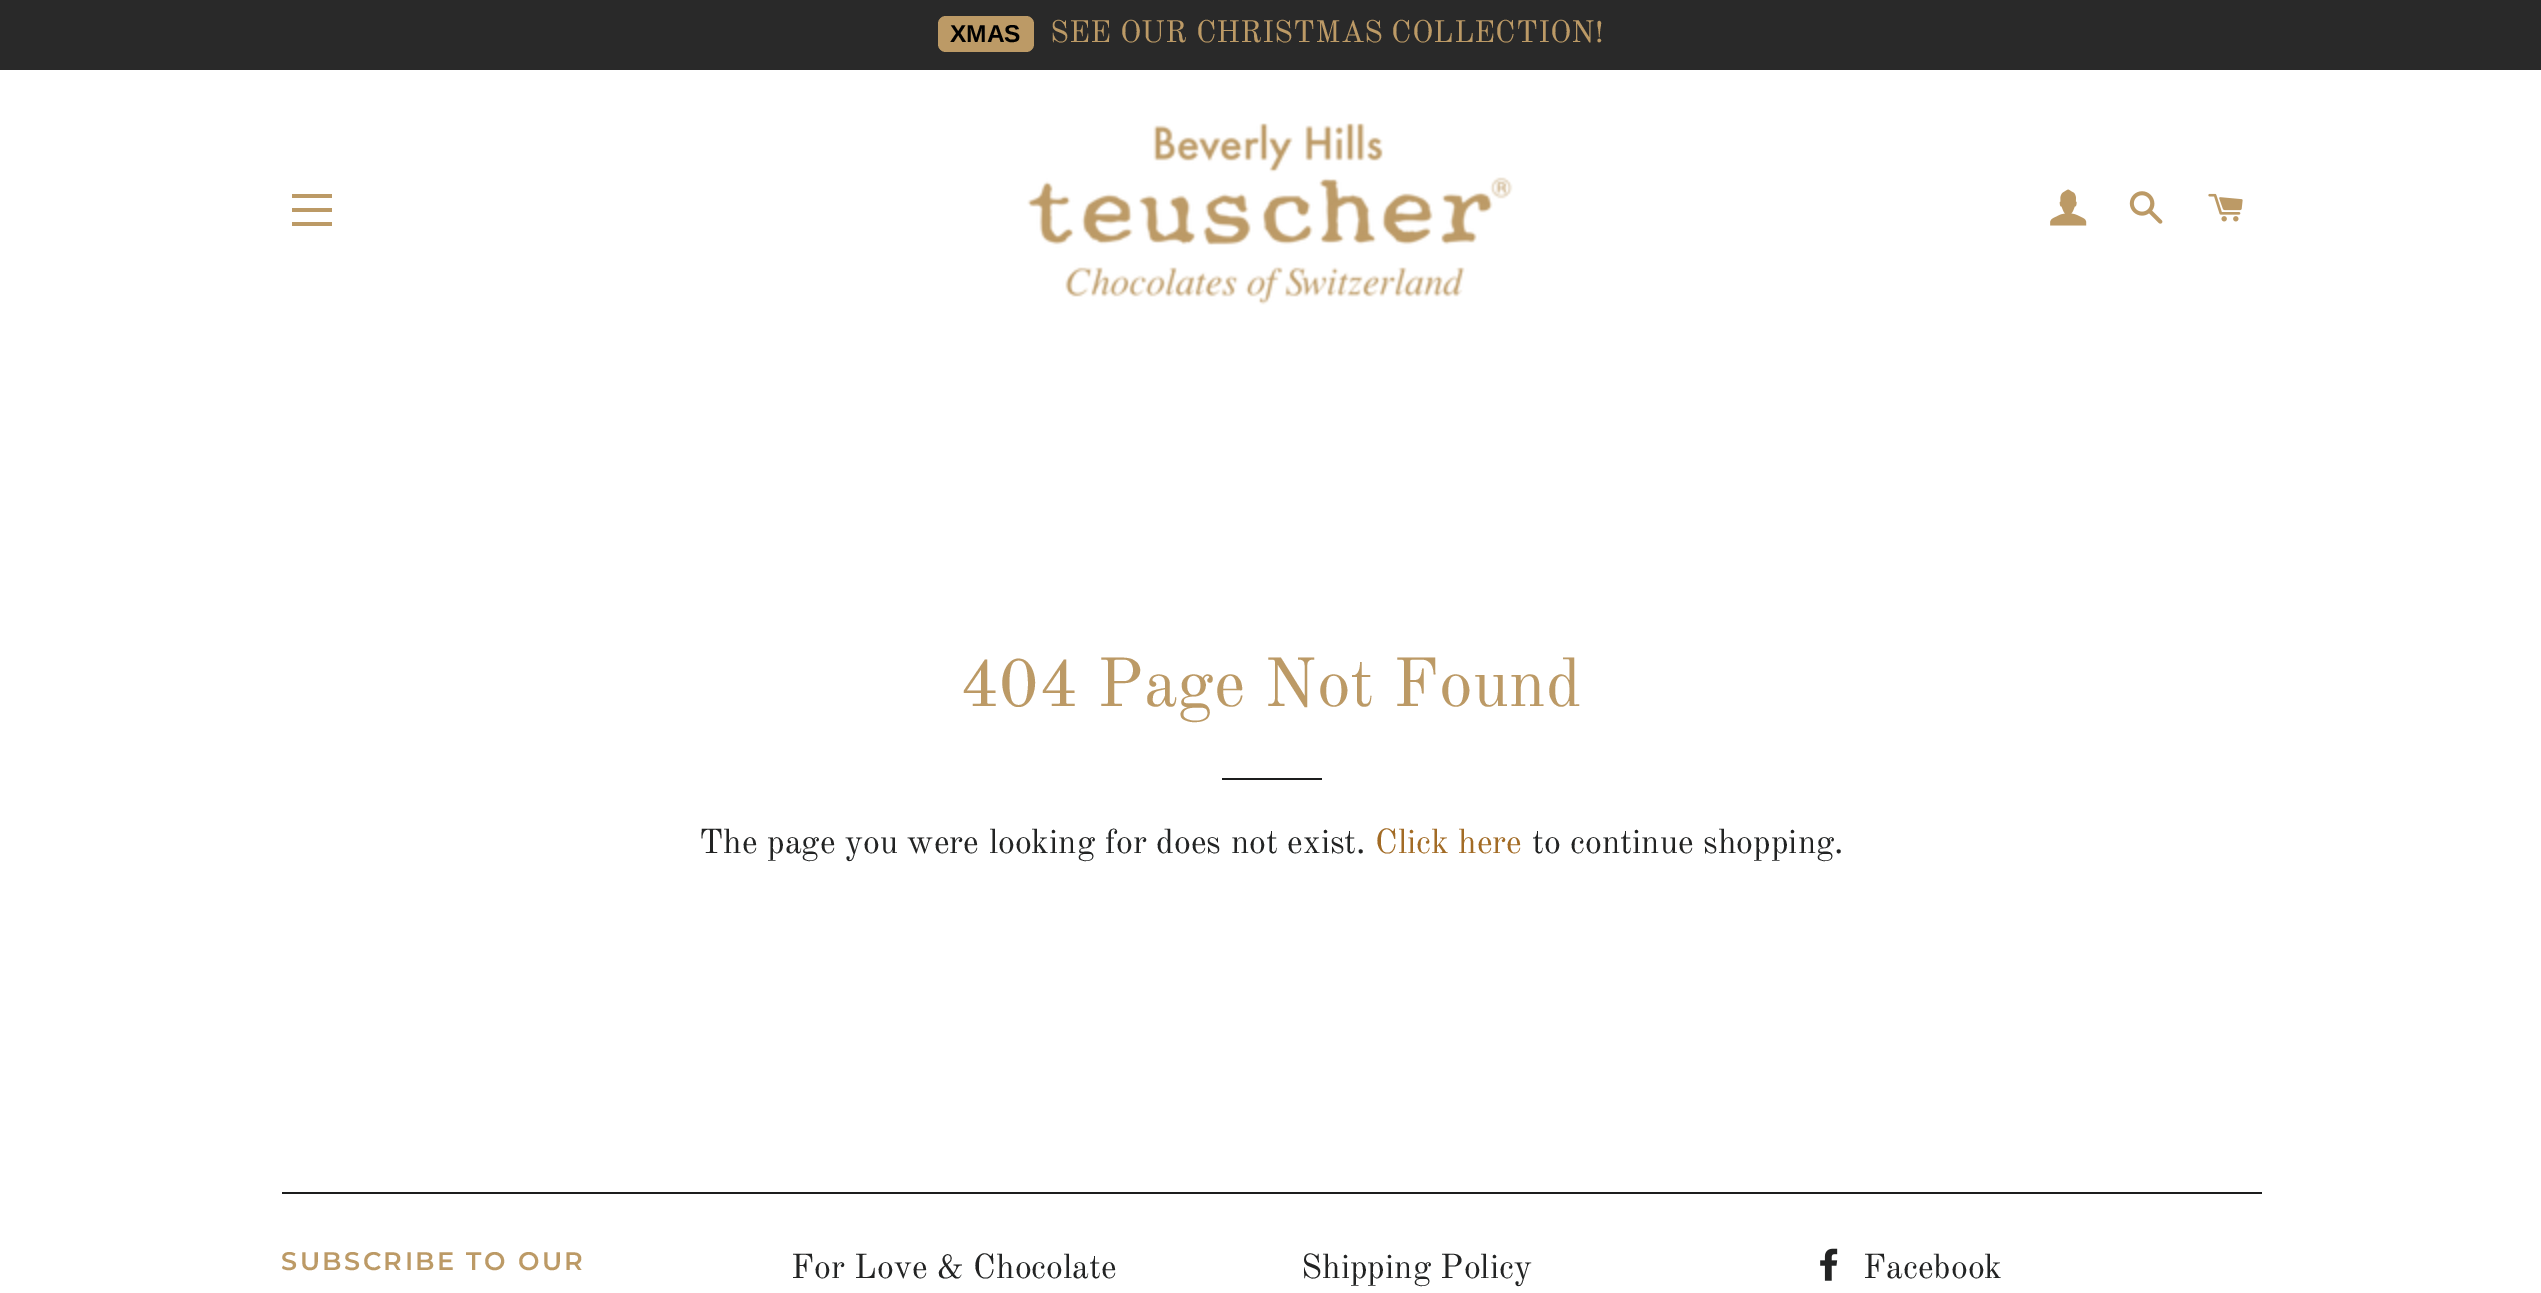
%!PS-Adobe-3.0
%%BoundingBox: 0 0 2541 1293
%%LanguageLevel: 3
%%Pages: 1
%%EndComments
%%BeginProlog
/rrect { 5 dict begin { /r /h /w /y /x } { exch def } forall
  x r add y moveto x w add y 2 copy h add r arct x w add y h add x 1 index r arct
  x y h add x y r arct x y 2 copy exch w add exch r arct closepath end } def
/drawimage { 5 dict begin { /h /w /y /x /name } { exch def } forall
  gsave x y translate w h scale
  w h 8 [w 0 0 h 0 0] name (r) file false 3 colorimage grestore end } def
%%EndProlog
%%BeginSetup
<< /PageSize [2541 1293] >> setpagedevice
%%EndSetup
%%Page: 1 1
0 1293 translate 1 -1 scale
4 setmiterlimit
1 setgray
0 0 2541 1293 rectfill
0.161 setgray
0 0 2541 70 rectfill
0.737 0.604 0.4 setrgbcolor
938 16 96 36 8 rrect fill
292 194 40 4 rectfill
292 208 40 4 rectfill
292 222 40 4 rectfill
(images/1.raw) 1027 123 486 182 drawimage
(images/2.raw) 2050 189 37 37 drawimage
(images/3.raw) 2129 191 34 33 drawimage
(images/4.raw) 2208 193 35 29 drawimage
0.11 0.114 0.114 setrgbcolor
1222 778 100 2 rectfill
282 1192 1980 2 rectfill
(images/5.raw) 1820 1248 18 33 drawimage
/LiberationSans-Bold [24.5 0 0 -24.5 0 0] selectfont
0 setgray
950 42 moveto (XMAS) show
/OldStandardTT-Regular [30.6 0 0 -30.6 0 0] selectfont
0.737 0.604 0.4 setrgbcolor
1050 42 moveto (SEE OUR CHRISTMAS COLLECTION!) show
/OldStandardTT-Regular [68 0 0 -68 0 0] selectfont
960 706 moveto (404 Page Not Found) show
/OldStandardTT-Regular [34 0 0 -34 0 0] selectfont
0.133 0.137 0.137 setrgbcolor
699 853 moveto (The page you were looking for does not exist.) show
0.635 0.42 0.145 setrgbcolor
1375 853 moveto (Click here) show
0.133 0.137 0.137 setrgbcolor
1532 853 moveto (to continue shopping.) show
/Montserrat-SemiBold [25.5 0 0 -25.5 0 0] selectfont
0.737 0.604 0.4 setrgbcolor
281 1270 moveto 2.5 0 (SUBSCRIBE TO OUR) ashow
/OldStandardTT-Regular [34 0 0 -34 0 0] selectfont
0.133 0.137 0.137 setrgbcolor
791 1278 moveto (For Love & Chocolate) show
1301 1278 moveto (Shipping Policy) show
1863 1278 moveto (Facebook) show
showpage
%%EOF
